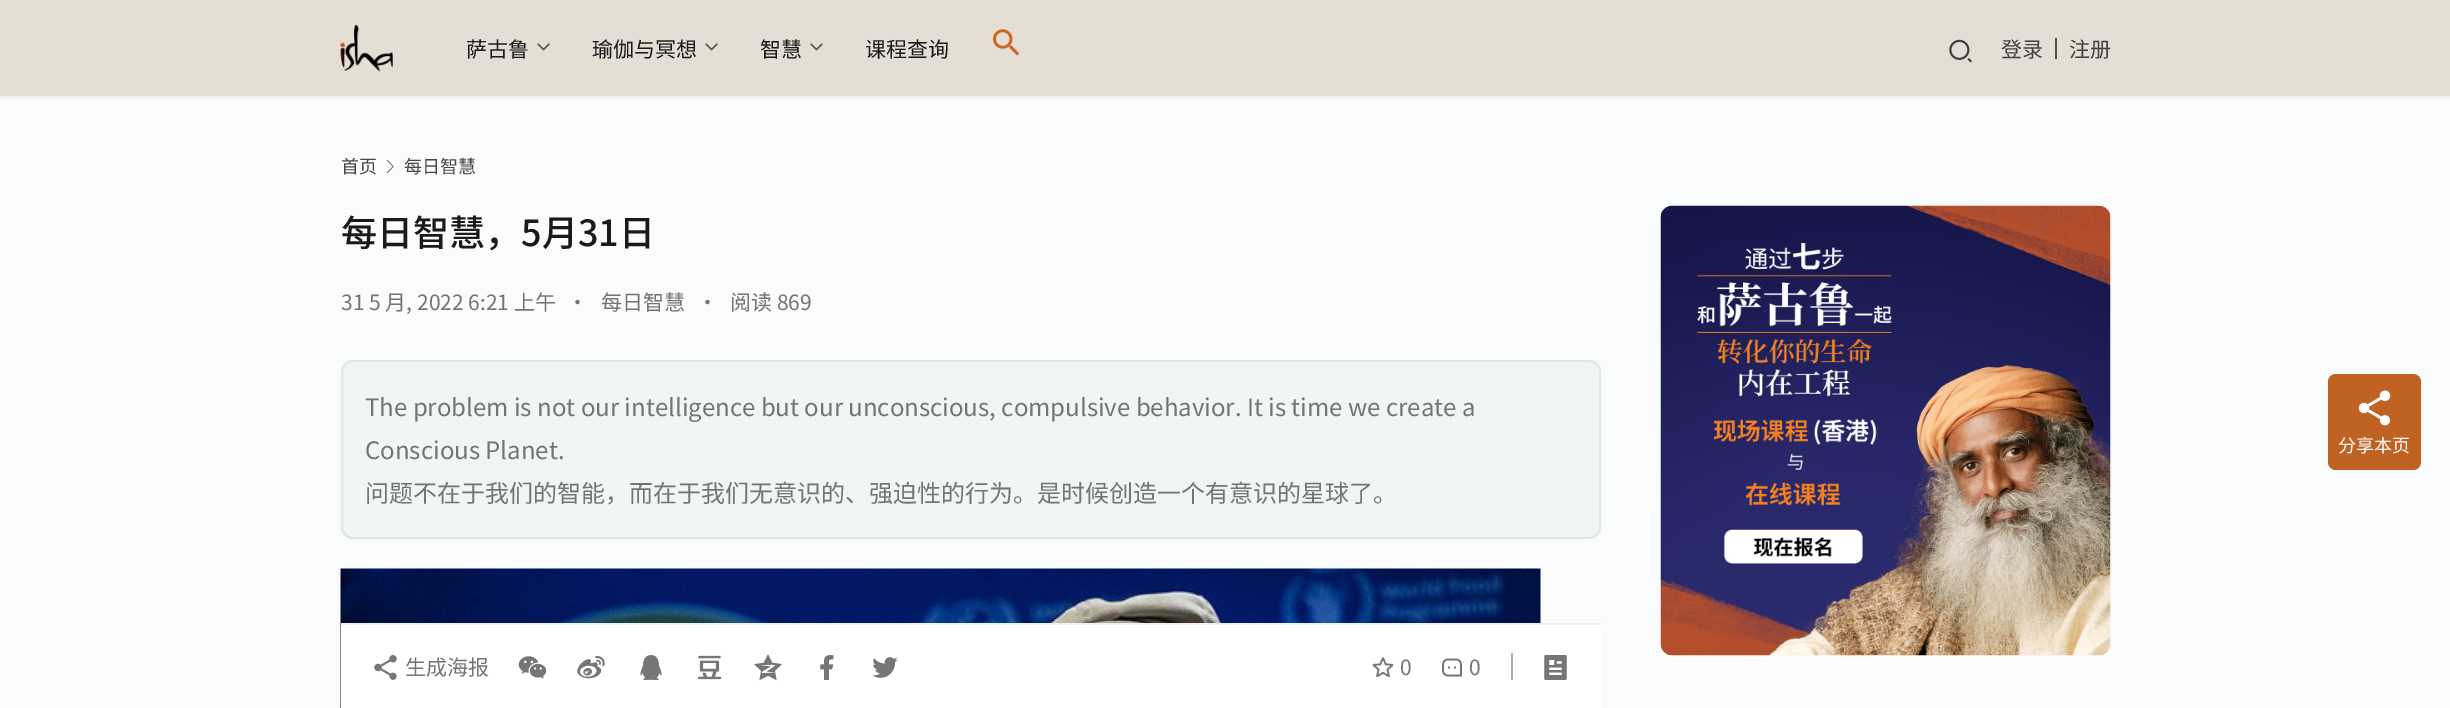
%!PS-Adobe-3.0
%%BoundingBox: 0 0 2450 708
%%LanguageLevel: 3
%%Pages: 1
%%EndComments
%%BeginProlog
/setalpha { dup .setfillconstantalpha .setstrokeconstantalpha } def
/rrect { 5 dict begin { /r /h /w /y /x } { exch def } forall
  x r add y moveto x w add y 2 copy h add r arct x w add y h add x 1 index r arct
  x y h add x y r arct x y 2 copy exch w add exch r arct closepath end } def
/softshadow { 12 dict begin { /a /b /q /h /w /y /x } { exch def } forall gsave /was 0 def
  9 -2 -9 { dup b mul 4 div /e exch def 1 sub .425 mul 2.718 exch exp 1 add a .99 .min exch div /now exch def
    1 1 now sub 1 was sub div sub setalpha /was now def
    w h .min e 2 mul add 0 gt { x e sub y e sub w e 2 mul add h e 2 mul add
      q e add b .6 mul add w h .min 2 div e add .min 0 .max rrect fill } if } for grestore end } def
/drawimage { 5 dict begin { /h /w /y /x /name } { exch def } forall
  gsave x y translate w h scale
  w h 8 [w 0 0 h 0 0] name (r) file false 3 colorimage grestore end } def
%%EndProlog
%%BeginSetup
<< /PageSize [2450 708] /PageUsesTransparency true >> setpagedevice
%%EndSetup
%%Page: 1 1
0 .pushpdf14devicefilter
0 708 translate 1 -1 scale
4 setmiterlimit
0.98 0.984 0.988 setrgbcolor
0 0 2450 708 rectfill
0.102 setgray
-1 -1 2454 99 0 2 0.06 softshadow
0.894 0.871 0.831 setrgbcolor
0 0 2450 96 rectfill
(images/1.raw) 340 24 53 48 drawimage
(images/2.raw) 537 43 13 8 drawimage
(images/2.raw) 705 43 13 8 drawimage
(images/2.raw) 810 43 13 8 drawimage
(images/3.raw) 993 29 27 27 drawimage
(images/4.raw) 1949 39 23 24 drawimage
0.322 0.318 0.306 setrgbcolor
2055 38 2 21 rectfill
(images/5.raw) 386 160 8 13 drawimage
0.949 0.961 0.961 setrgbcolor
341 360 1260 179 12 rrect fill
0.07 setalpha
0.102 setgray
2 setlinewidth
342 361 1258 177 11 rrect stroke
1 setalpha
(images/6.raw) 340 568 1201 140 drawimage
1 setgray
341 625 1260 83 rectfill
0.937 setgray
341 623 1260 2 rectfill
(images/7.raw) 374 655 23 25 drawimage
(images/8.raw) 518 656 29 23 drawimage
(images/9.raw) 577 656 28 23 drawimage
(images/10.raw) 640 655 22 25 drawimage
(images/11.raw) 697 655 25 25 drawimage
(images/12.raw) 754 654 28 27 drawimage
(images/13.raw) 820 655 14 25 drawimage
(images/14.raw) 872 657 26 21 drawimage
(images/15.raw) 1372 657 22 21 drawimage
(images/16.raw) 1442 658 20 19 drawimage
0.678 setgray
1511 653 2 27 rectfill
(images/17.raw) 1544 655 23 25 drawimage
(images/18.raw) 1660 205 451 451 drawimage
0.804 0.404 0.145 setrgbcolor
2328 374 93 96 8 rrect fill
0.07 setalpha
0.102 setgray
2328 374 93 96 8 rrect fill
1 setalpha
(images/19.raw) 2358 390 33 36 drawimage
/NotoSansCJKSC-Regular [21 0 0 -21 0 0] selectfont
466 57 moveto (萨古鲁) show
592 57 moveto (瑜伽与冥想) show
760 57 moveto (智慧) show
865 57 moveto (课程查询) show
0.259 0.255 0.247 setrgbcolor
2001 57 moveto (登录) show
2069 57 moveto (注册) show
/NotoSansCJKSC-Regular [18 0 0 -18 0 0] selectfont
0.278 setgray
341 173 moveto (首页) show
404 173 moveto (每日智慧) show
/NotoSansCJKSC-Medium [36 0 0 -36 0 0] selectfont
0.102 setgray
341 246 moveto (每日智慧，5月31日) show
/NotoSansCJKSC-Regular [21 0 0 -21 0 0] selectfont
0.455 setgray
341 310 moveto (31 5 月, 2022 6:21 上午) show
567 310 moveto (•) show
601 310 moveto (每日智慧) show
697 310 moveto (•) show
730 310 moveto (阅读 869) show
/NotoSansCJKSC-Regular [24 0 0 -24 0 0] selectfont
365 416 moveto (The problem is not our intelligence but our unconscious, compulsive behavior. It is time we create a) show
365 459 moveto (Conscious Planet.) show
365 502 moveto (问题不在于我们的智能，而在于我们无意识的、强迫性的行为。是时候创造一个有意识的星球了。) show
/NotoSansCJKSC-Regular [21 0 0 -21 0 0] selectfont
405 675 moveto (生成海报) show
1400 675 moveto (0) show
1469 675 moveto (0) show
/NotoSansCJKSC-Regular [18 0 0 -18 0 0] selectfont
1 setgray
2338 452 moveto (分享本页) show
.poppdf14devicefilter showpage
%%EOF
